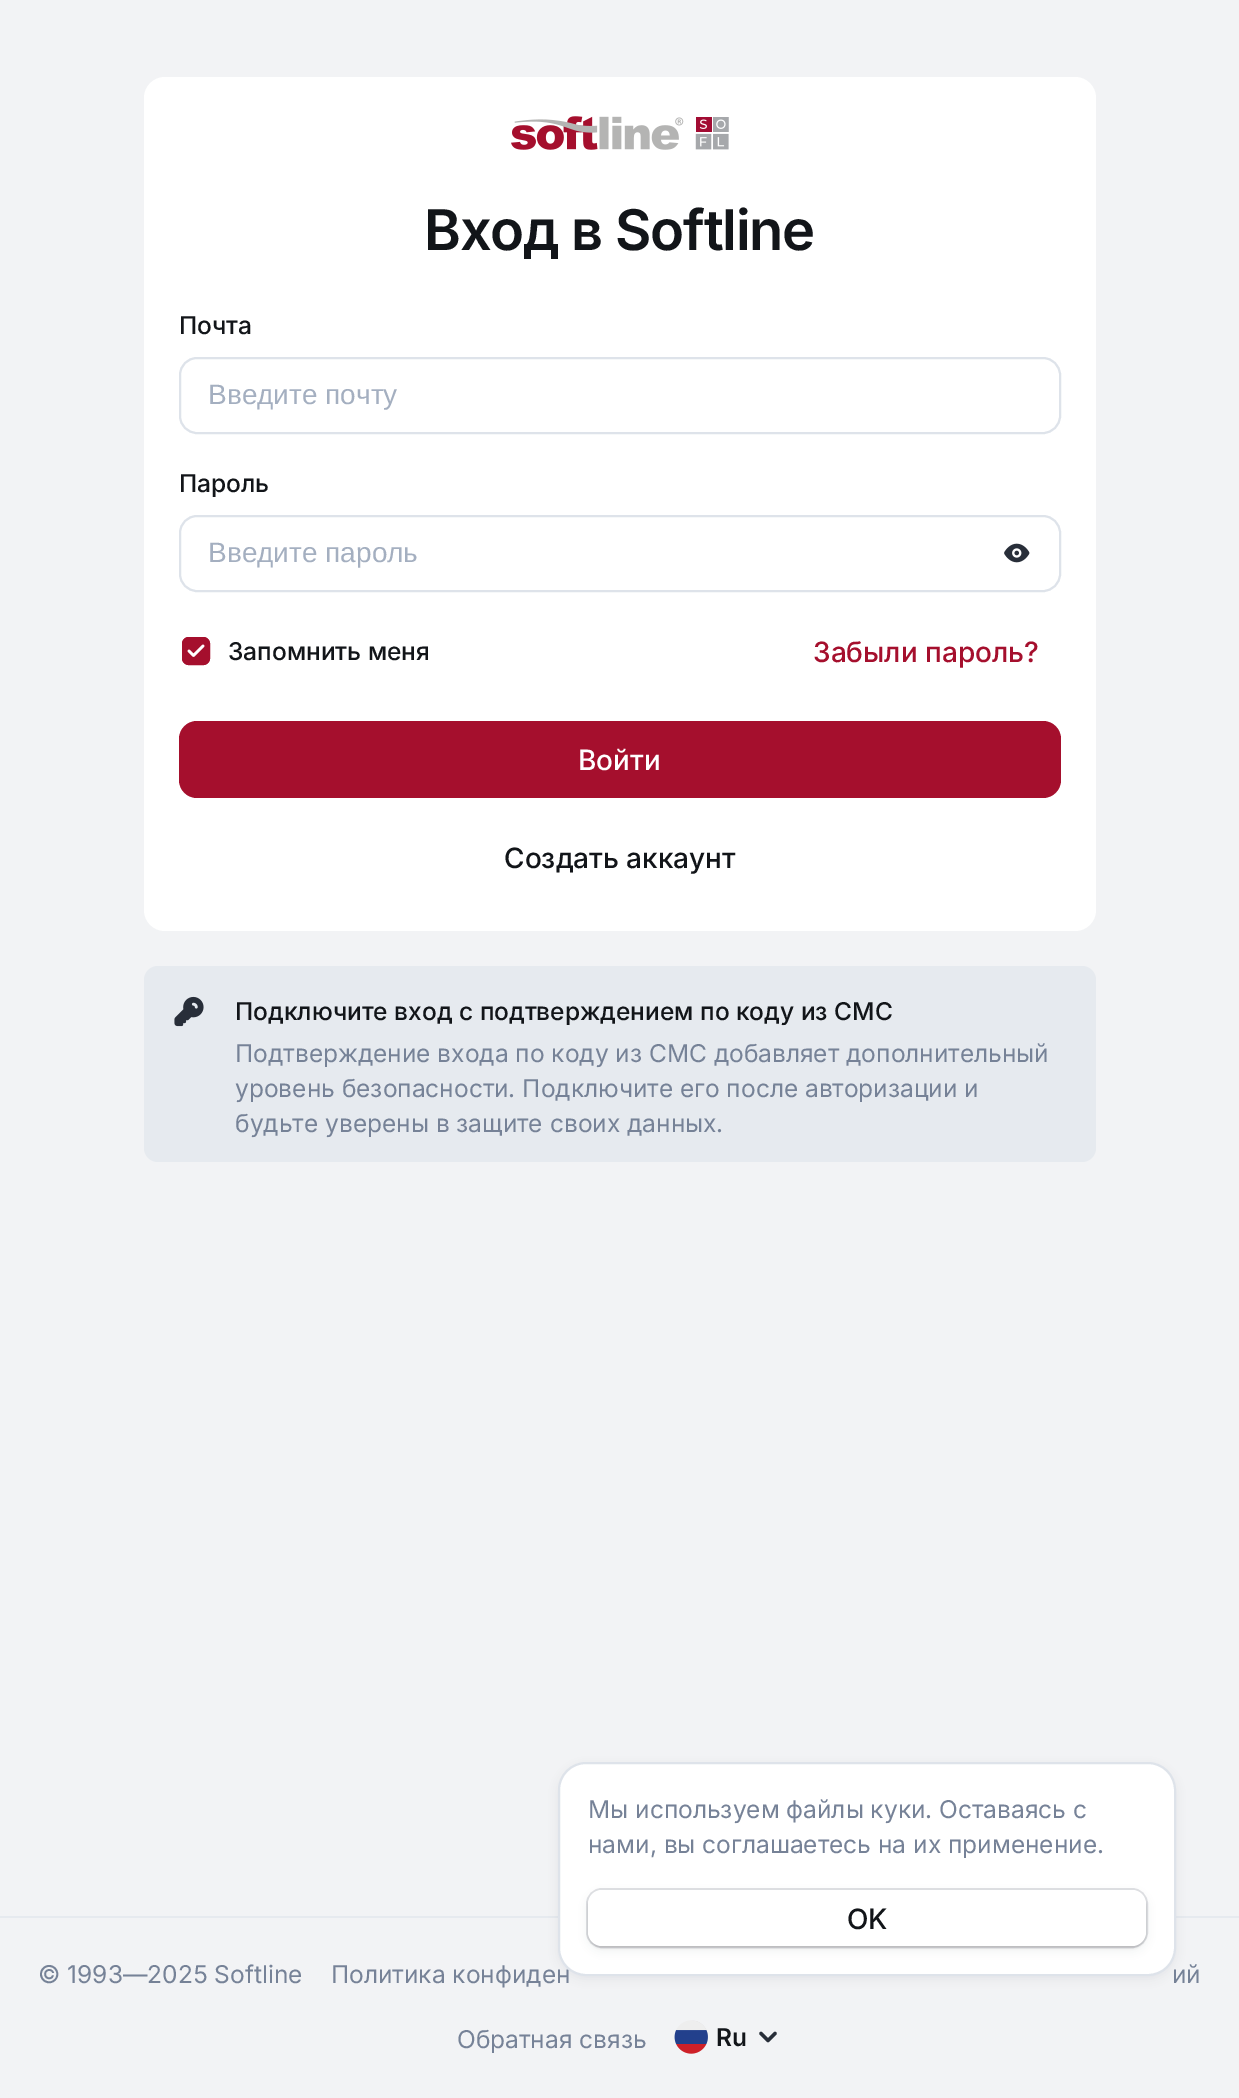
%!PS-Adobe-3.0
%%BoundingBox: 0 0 1239 2098
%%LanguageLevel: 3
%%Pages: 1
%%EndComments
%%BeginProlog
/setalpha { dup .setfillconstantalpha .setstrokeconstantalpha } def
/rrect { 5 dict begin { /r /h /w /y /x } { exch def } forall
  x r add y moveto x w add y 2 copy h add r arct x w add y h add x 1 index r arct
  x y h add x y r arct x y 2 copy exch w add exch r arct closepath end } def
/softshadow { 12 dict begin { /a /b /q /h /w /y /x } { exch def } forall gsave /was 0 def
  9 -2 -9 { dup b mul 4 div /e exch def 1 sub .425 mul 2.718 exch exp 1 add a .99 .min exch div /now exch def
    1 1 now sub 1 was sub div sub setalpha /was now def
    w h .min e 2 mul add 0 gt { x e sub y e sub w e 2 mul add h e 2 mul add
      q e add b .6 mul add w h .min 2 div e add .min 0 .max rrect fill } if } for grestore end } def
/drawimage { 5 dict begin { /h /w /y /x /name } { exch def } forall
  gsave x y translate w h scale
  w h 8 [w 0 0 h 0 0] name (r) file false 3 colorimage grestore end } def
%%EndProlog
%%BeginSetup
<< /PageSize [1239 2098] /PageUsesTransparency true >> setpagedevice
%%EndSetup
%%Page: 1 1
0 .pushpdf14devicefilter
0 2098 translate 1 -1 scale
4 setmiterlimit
0.949 0.953 0.961 setrgbcolor
0 0 1239 2098 rectfill
1 setgray
144 77 952 854 21 rrect fill
(images/1.raw) 511 116 218 34 drawimage
0.871 0.89 0.918 setrgbcolor
2 setlinewidth
180 358 880 75 17 rrect stroke
180 516 880 75 17 rrect stroke
(images/2.raw) 1004 543 26 20 drawimage
0.647 0.059 0.176 setrgbcolor
182 637 28 28 7 rrect fill
1 setgray
2.6 setlinewidth
1 setlinecap
1 setlinejoin
newpath 203 646 moveto 193.5 655.5 lineto 189 651 lineto stroke
0.647 0.059 0.176 setrgbcolor
2 setlinewidth
0 setlinecap
0 setlinejoin
183 638 26 26 6 rrect stroke
179 721 882 77 18 rrect fill
0.902 0.918 0.937 setrgbcolor
144 966 952 196 14 rrect fill
(images/3.raw) 174 996 30 31 drawimage
0 1916 1239 2 rectfill
0.235 0.259 0.341 setrgbcolor
558 1766 618 213 28 4.5 0.08 softshadow
(images/4.raw) 674 2020 34 34 drawimage
0.157 0.18 0.224 setrgbcolor
3.5 setlinewidth
1 setlinecap
1 setlinejoin
newpath 761 2033.5 moveto 768 2040.5 lineto 775 2033.5 lineto stroke
/Inter-SemiBold [56 0 0 -56 0 0] selectfont
0.071 0.082 0.098 setrgbcolor
424 250 moveto -1.25 0 (Вход в Softline) ashow
/Inter-Medium [24.5 0 0 -24.5 0 0] selectfont
179 334 moveto (Почта) show
/LiberationSans-Regular [28 0 0 -28 0 0] selectfont
0.643 0.686 0.753 setrgbcolor
208 404 moveto (Введите почту) show
/Inter-Medium [24.5 0 0 -24.5 0 0] selectfont
0.071 0.082 0.098 setrgbcolor
179 492 moveto (Пароль) show
/LiberationSans-Regular [28 0 0 -28 0 0] selectfont
0.643 0.686 0.753 setrgbcolor
208 562 moveto (Введите пароль) show
/Inter-Medium [24.5 0 0 -24.5 0 0] selectfont
0.071 0.082 0.098 setrgbcolor
228 660 moveto (Запомнить меня) show
/Inter-Medium [28 0 0 -28 0 0] selectfont
0.647 0.059 0.176 setrgbcolor
813 662 moveto (Забыли пароль?) show
1 setgray
578 770 moveto (Войти) show
0.071 0.082 0.098 setrgbcolor
504 868 moveto (Создать аккаунт) show
/Inter-Medium [24.5 0 0 -24.5 0 0] selectfont
235 1020 moveto (Подключите вход с подтверждением по коду из СМС) show
/Inter-Regular [24.5 0 0 -24.5 0 0] selectfont
0.463 0.51 0.592 setrgbcolor
235 1062 moveto (Подтверждение входа по коду из СМС добавляет дополнительный) show
235 1097 moveto (уровень безопасности. Подключите его после авторизации и) show
235 1132 moveto (будьте уверены в защите своих данных.) show
38 1983 moveto (© 1993—2025 Softline) show
331 1983 moveto (Политика конфиден) show
1172 1983 moveto (ий) show
1 setgray
559 1763 616 212 27 rrect gsave fill grestore
0.871 0.89 0.918 setrgbcolor
2 setlinewidth
0 setlinecap
0 setlinejoin
stroke
0.235 0.259 0.341 setrgbcolor
588 1894 558 56 14 4.5 0.08 softshadow
0.16 setalpha
587 1889 560 58 15 rrect stroke
1 setalpha
0 setgray
588 1892 558 56 14 1 0.12 softshadow
1 setgray
588 1890 558 56 14 rrect fill
/Inter-Medium [28 0 0 -28 0 0] selectfont
0.071 0.082 0.098 setrgbcolor
847 1929 moveto (OK) show
/Inter-Regular [24.5 0 0 -24.5 0 0] selectfont
0.463 0.51 0.592 setrgbcolor
588 1853 moveto (нами, вы соглашаетесь на их применение.) show
588 1818 moveto (Мы используем файлы куки. Оставаясь с) show
457 2048 moveto (Обратная связь) show
/Inter-SemiBold [24.5 0 0 -24.5 0 0] selectfont
0.071 0.082 0.098 setrgbcolor
716 2046 moveto (Ru) show
.poppdf14devicefilter showpage
%%EOF
